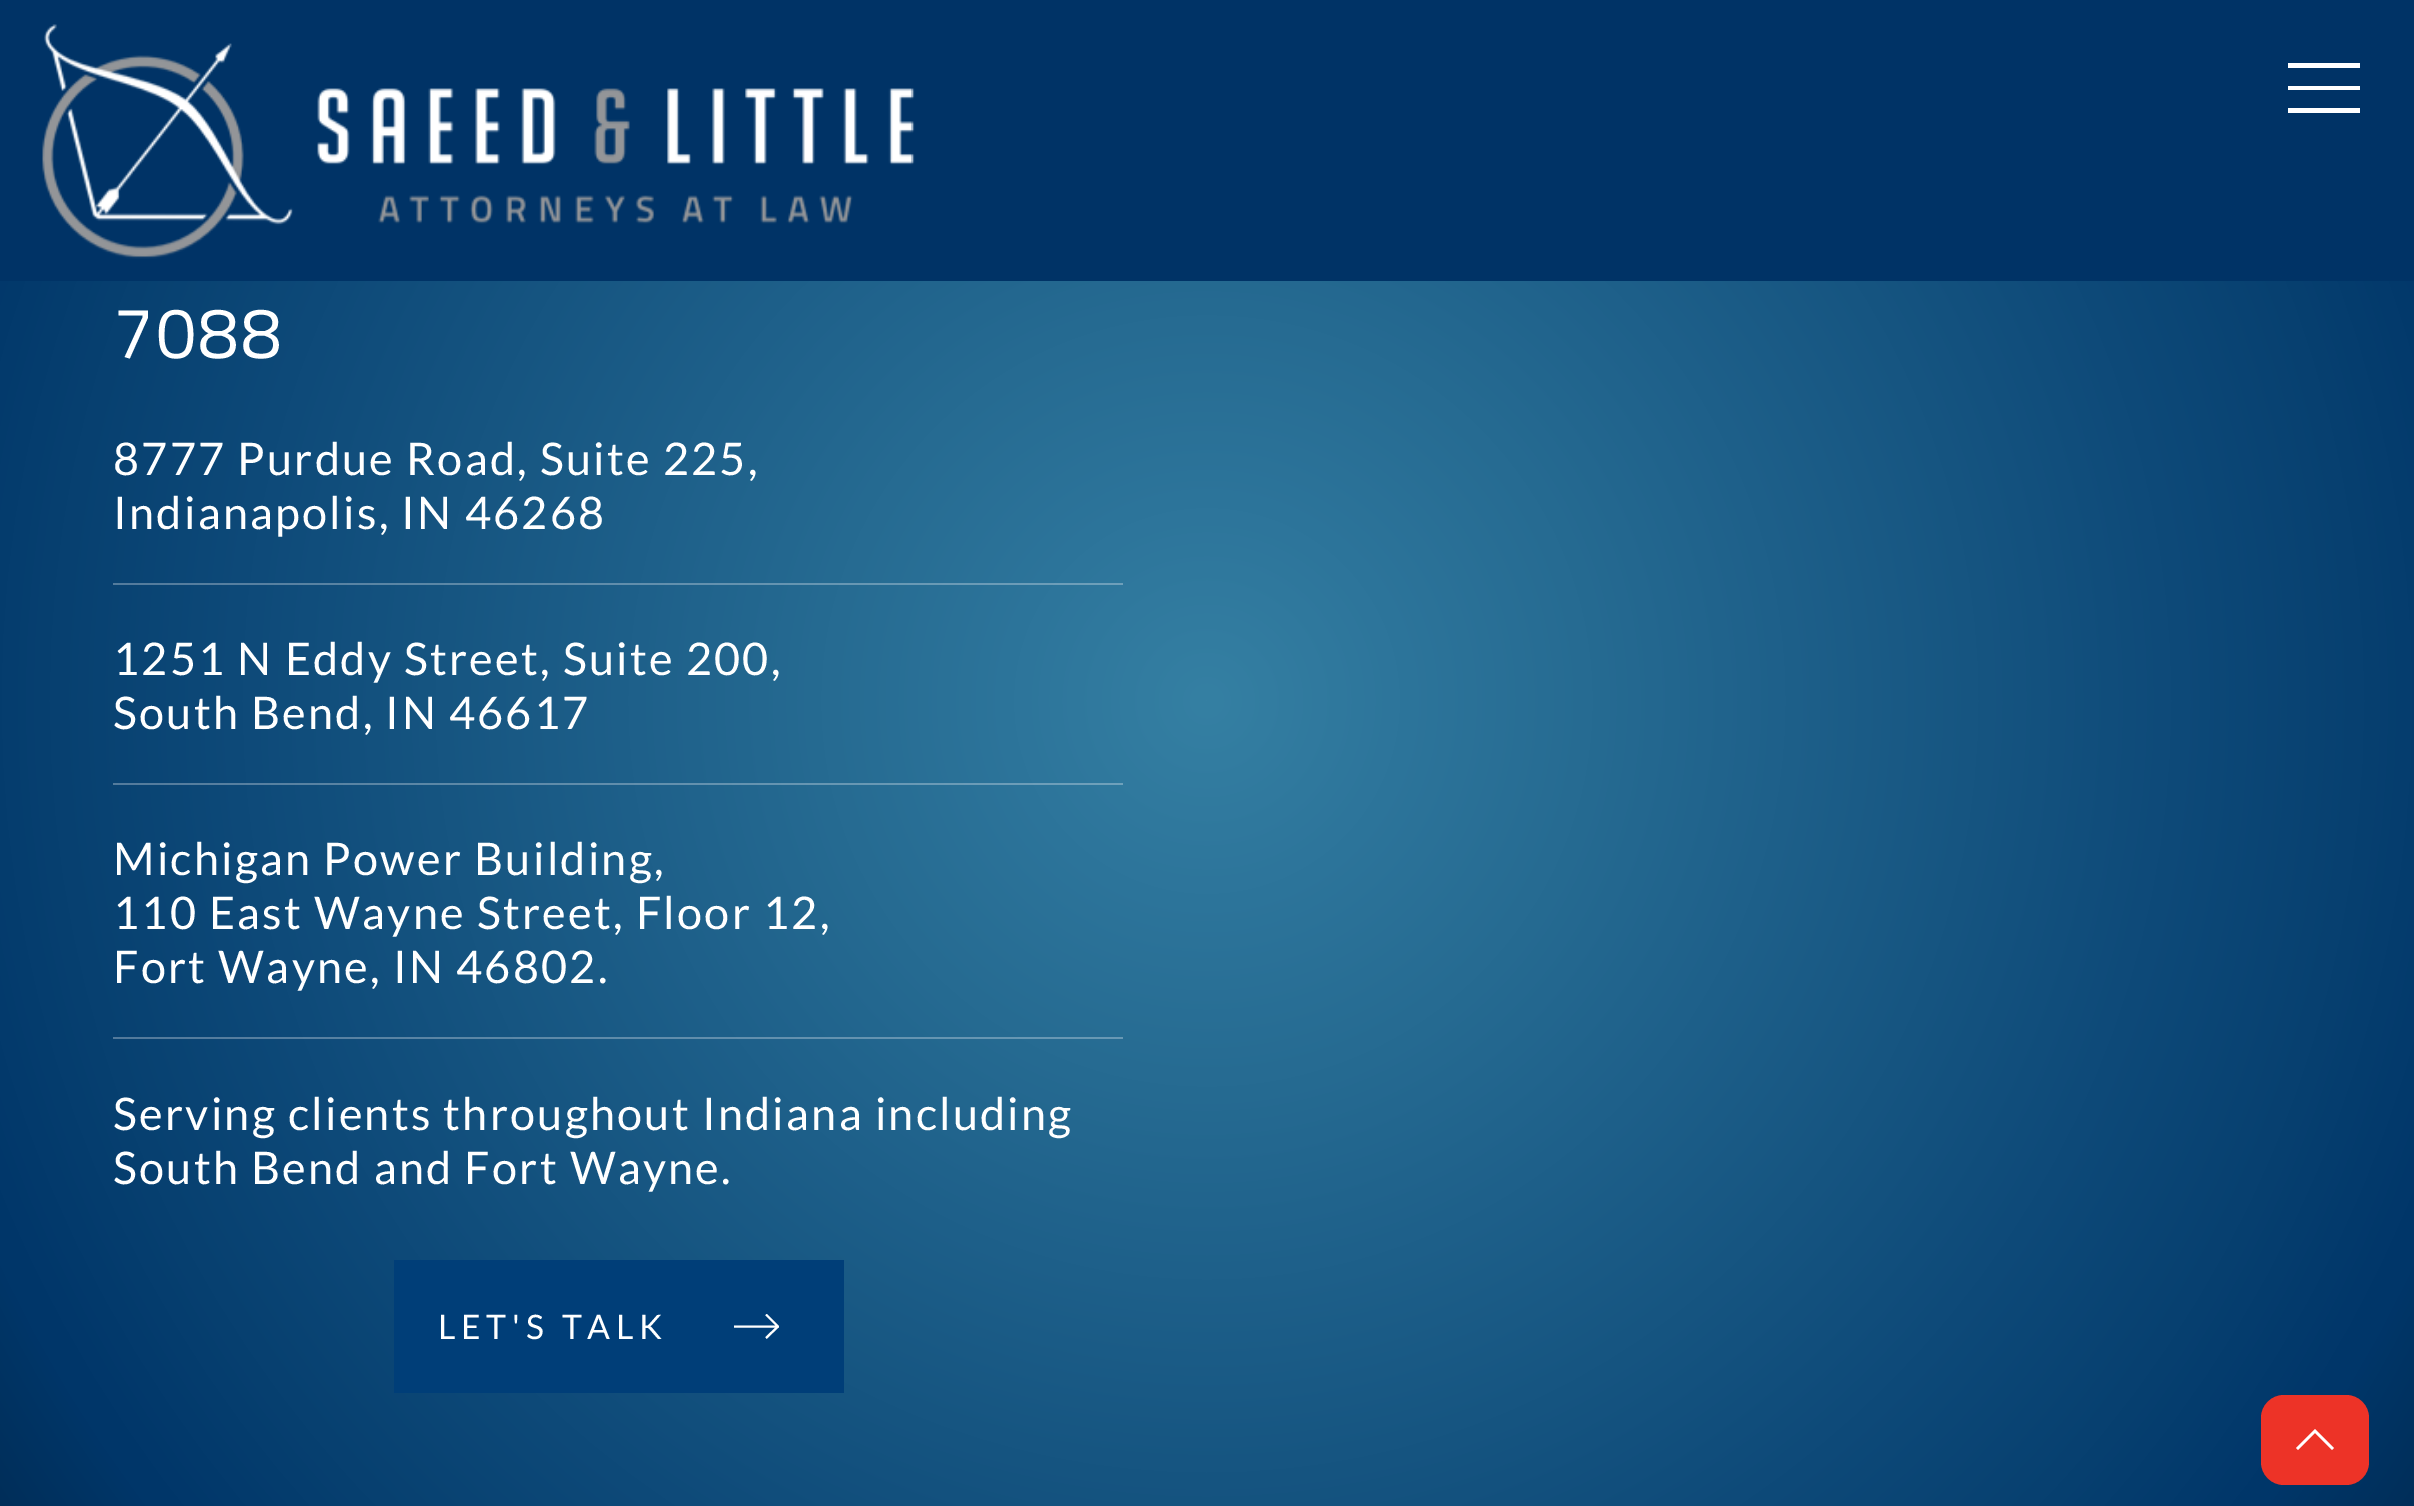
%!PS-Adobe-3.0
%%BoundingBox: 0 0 2414 1506
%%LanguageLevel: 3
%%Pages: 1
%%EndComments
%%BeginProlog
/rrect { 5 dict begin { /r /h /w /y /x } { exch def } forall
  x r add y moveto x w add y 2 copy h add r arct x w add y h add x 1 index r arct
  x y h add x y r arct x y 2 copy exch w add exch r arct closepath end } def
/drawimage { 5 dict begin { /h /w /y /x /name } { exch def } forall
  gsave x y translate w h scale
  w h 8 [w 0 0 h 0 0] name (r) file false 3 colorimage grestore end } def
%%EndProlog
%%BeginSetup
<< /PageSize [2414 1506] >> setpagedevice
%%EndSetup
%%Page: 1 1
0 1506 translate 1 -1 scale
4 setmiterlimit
1 setgray
0 0 2414 1506 rectfill
0 0.2 0.4 setrgbcolor
0 0 2414 281 rectfill
(images/1.raw) 42 24 873 235 drawimage
1 setgray
2288 63 72 5 rectfill
2288 86 72 4 rectfill
2288 108 72 5 rectfill
gsave newpath 0 281 moveto 2414 281 lineto 2414 1506 lineto 0 1506 lineto closepath clip newpath 1207 701 translate 1543 1543 scale
<< /ShadingType 3 /ColorSpace /DeviceRGB /Coords [0 0 0 0 0 1] /Extend [true true] /Function << /FunctionType 3 /Domain [0 1] /Functions [<< /FunctionType 2 /Domain [0 1] /C0 [0.208 0.502 0.639] /C1 [0 0.212 0.412] /N 1 >> << /FunctionType 2 /Domain [0 1] /C0 [0 0.212 0.412] /C1 [0 0.157 0.306] /N 1 >>] /Bounds [0.86] /Encode [0 1 0 1] >> >> shfill grestore
gsave newpath 113 1037 moveto 1123 1037 lineto 1123 1039 lineto 113 1039 lineto closepath clip newpath 1207 701 translate 1543 1543 scale
<< /ShadingType 3 /ColorSpace /DeviceRGB /Coords [0 0 0 0 0 1] /Extend [true true] /Function << /FunctionType 3 /Domain [0 1] /Functions [<< /FunctionType 2 /Domain [0 1] /C0 [0.447 0.651 0.749] /C1 [0.302 0.447 0.588] /N 1 >> << /FunctionType 2 /Domain [0 1] /C0 [0.302 0.447 0.588] /C1 [0.302 0.412 0.514] /N 1 >>] /Bounds [0.86] /Encode [0 1 0 1] >> >> shfill grestore
gsave newpath 113 783 moveto 1123 783 lineto 1123 785 lineto 113 785 lineto closepath clip newpath 1207 701 translate 1543 1543 scale
<< /ShadingType 3 /ColorSpace /DeviceRGB /Coords [0 0 0 0 0 1] /Extend [true true] /Function << /FunctionType 3 /Domain [0 1] /Functions [<< /FunctionType 2 /Domain [0 1] /C0 [0.447 0.651 0.749] /C1 [0.302 0.447 0.588] /N 1 >> << /FunctionType 2 /Domain [0 1] /C0 [0.302 0.447 0.588] /C1 [0.302 0.412 0.514] /N 1 >>] /Bounds [0.86] /Encode [0 1 0 1] >> >> shfill grestore
gsave newpath 113 583 moveto 1123 583 lineto 1123 585 lineto 113 585 lineto closepath clip newpath 1207 701 translate 1543 1543 scale
<< /ShadingType 3 /ColorSpace /DeviceRGB /Coords [0 0 0 0 0 1] /Extend [true true] /Function << /FunctionType 3 /Domain [0 1] /Functions [<< /FunctionType 2 /Domain [0 1] /C0 [0.447 0.651 0.749] /C1 [0.302 0.447 0.588] /N 1 >> << /FunctionType 2 /Domain [0 1] /C0 [0.302 0.447 0.588] /C1 [0.302 0.412 0.514] /N 1 >>] /Bounds [0.86] /Encode [0 1 0 1] >> >> shfill grestore
0 0.243 0.471 setrgbcolor
394 1260 450 133 rectfill
gsave
734 1314 45 25 rectclip
1 setgray
2.1 setlinewidth
1 setlinejoin
newpath 733.5 1326.5 moveto 778 1326.5 lineto 766 1314.5 lineto stroke
grestore
1 setgray
2.1 setlinewidth
newpath 766 1338 moveto 778 1326.5 lineto stroke
0.929 0.2 0.153 setrgbcolor
2261 1395 108 90 23 rrect fill
1 setgray
2.7 setlinewidth
newpath 2297 1449 moveto 2315 1431 lineto 2333 1449 lineto stroke
/TitilliumWeb-Regular [72 0 0 -72 0 0] selectfont
113 358 moveto 2.25 0 (7088) ashow
/Lato-Regular [45 0 0 -45 0 0] selectfont
113 475 moveto 2.25 0 (8777 Purdue Road, Suite 225,) ashow
113 529 moveto 2.25 0 (Indianapolis, IN 46268) ashow
113 675 moveto 2.25 0 (1251 N Eddy Street, Suite 200,) ashow
113 729 moveto 2.25 0 (South Bend, IN 46617) ashow
113 875 moveto 2.25 0 (Michigan Power Building,) ashow
113 929 moveto 2.25 0 (110 East Wayne Street, Floor 12,) ashow
113 983 moveto 2.25 0 (Fort Wayne, IN 46802.) ashow
113 1130 moveto 2.25 0 (Serving clients throughout Indiana including) ashow
113 1184 moveto 2.25 0 (South Bend and Fort Wayne.) ashow
/Lato-Regular [33.75 0 0 -33.75 0 0] selectfont
438 1339 moveto 5.75 0 (LET'S TALK) ashow
showpage
%%EOF
